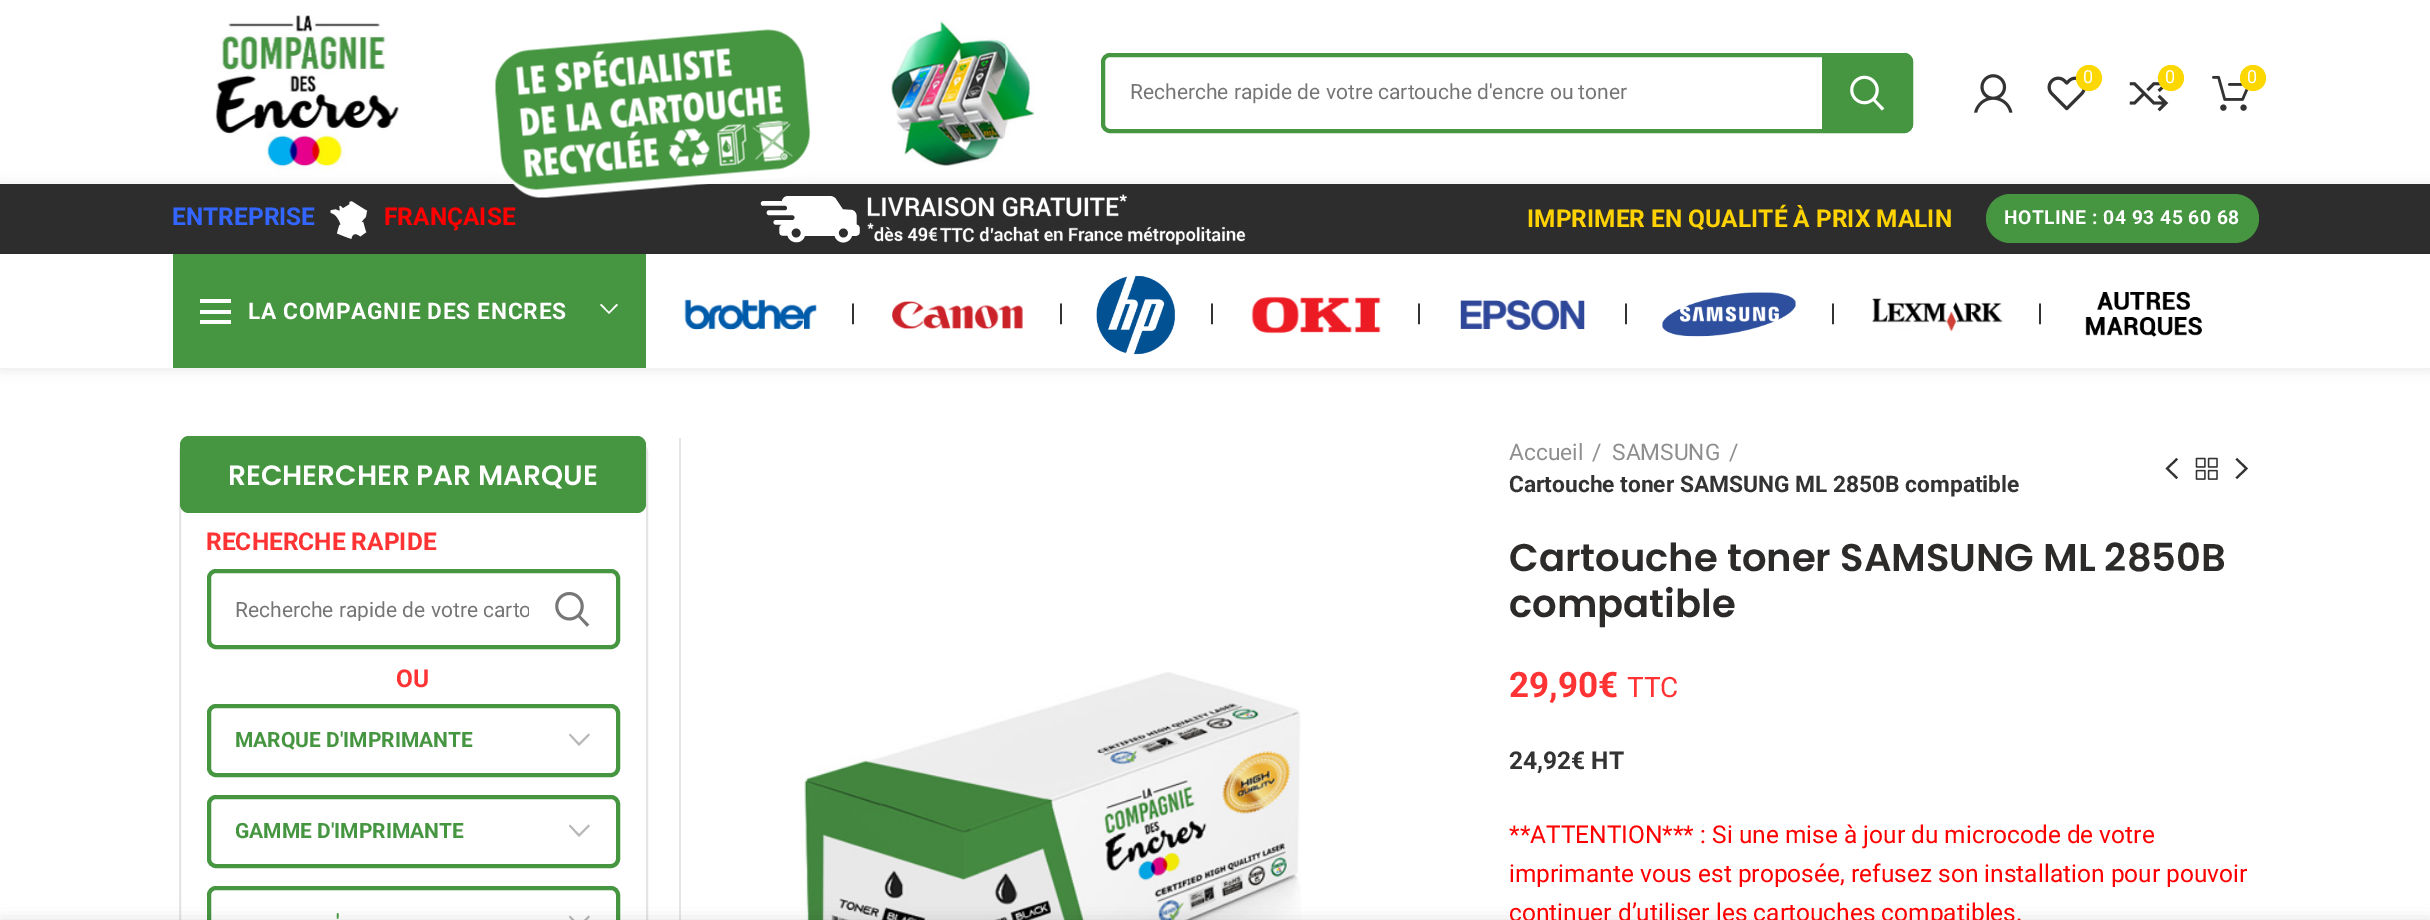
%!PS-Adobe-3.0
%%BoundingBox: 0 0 2430 920
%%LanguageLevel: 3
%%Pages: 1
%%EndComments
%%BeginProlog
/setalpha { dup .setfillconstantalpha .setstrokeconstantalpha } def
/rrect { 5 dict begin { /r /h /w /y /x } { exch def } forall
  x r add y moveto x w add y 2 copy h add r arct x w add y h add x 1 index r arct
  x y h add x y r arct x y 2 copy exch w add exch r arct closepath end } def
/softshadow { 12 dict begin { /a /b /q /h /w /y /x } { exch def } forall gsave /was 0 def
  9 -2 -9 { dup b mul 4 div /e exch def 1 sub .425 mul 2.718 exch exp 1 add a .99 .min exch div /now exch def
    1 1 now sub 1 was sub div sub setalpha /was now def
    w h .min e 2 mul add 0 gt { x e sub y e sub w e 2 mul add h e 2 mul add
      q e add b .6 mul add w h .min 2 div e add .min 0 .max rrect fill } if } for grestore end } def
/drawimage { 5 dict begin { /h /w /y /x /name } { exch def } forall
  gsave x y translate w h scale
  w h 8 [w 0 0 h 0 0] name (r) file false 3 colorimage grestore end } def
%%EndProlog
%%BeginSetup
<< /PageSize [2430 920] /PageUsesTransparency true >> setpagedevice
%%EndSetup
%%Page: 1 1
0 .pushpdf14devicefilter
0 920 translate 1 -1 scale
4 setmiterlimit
1 setgray
0 0 2430 920 rectfill
0 setgray
0 186 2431 70 0 7 0.1 softshadow
(images/1.raw) 215 15 185 156 drawimage
(images/2.raw) 1974 74 39 39 drawimage
(images/3.raw) 2047 76 39 35 drawimage
0.988 0.843 0 setrgbcolor
newpath 2089 78 13 0 360 arc closepath fill
(images/4.raw) 2129 76 40 36 drawimage
newpath 2171 78 13 0 360 arc closepath fill
(images/5.raw) 2212 75 37 36 drawimage
newpath 2253 78 13 0 360 arc closepath fill
0.176 setgray
0 184 2430 70 rectfill
0 setgray
0 256 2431 113 0 7 0.1 softshadow
(images/10.raw) 760 194 486 51 drawimage
(images/6.raw) 495 29 316 169 drawimage
(images/7.raw) 891 19 144 147 drawimage
0.275 0.588 0.255 setrgbcolor
4 setlinewidth
1103 55 808 76 7 rrect stroke
newpath 1822 53 moveto 1904 53 lineto 1909 53 1913 57 1913 62 curveto 1913 124 lineto 1913 129 1909 133 1904 133 curveto 1822 133 lineto closepath fill
(images/8.raw) 1850 75 35 36 drawimage
(images/9.raw) 330 201 38 38 drawimage
1986 194 273 49 24.5 rrect fill
1 setgray
0 254 2430 114 rectfill
0.275 0.588 0.255 setrgbcolor
173 254 473 114 rectfill
1 setgray
200 310 31 4 rectfill
200 299 31 4 rectfill
200 320 31 4 rectfill
newpath 616.5 304 moveto 618 305 lineto 609 314 lineto 600 305 lineto 601.5 304 lineto 609 312 lineto closepath fill
(images/11.raw) 684 299 133 31 drawimage
(images/12.raw) 892 301 131 28 drawimage
(images/13.raw) 1096 275 80 80 drawimage
(images/14.raw) 1251 296 130 38 drawimage
(images/15.raw) 1460 300 125 30 drawimage
(images/16.raw) 1662 292 134 45 drawimage
(images/17.raw) 1872 298 131 34 drawimage
(images/18.raw) 2085 292 117 45 drawimage
0.902 setgray
679 438 2 482 rectfill
0.898 setgray
2 setlinewidth
180 444 467 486 8 rrect stroke
0.275 0.588 0.255 setrgbcolor
180 436 466 77 9 rrect fill
4 setlinewidth
209 571 409 76 7 rrect stroke
(images/19.raw) 555 591 35 36 drawimage
209 706 409 69 7 rrect stroke
0.718 setgray
newpath 588.5 733.5 moveto 590 735 lineto 579 746 lineto 569 735 lineto 570 733.5 lineto 579 743 lineto closepath fill
0.275 0.588 0.255 setrgbcolor
209 797 409 69 7 rrect stroke
0.718 setgray
newpath 588.5 824.5 moveto 590 826 lineto 579 837 lineto 569 826 lineto 570 824.5 lineto 579 834 lineto closepath fill
0.275 0.588 0.255 setrgbcolor
209 888 409 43 7 rrect stroke
0.718 setgray
newpath 588.5 915.5 moveto 590 917 lineto 579 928 lineto 569 917 lineto 570 915.5 lineto 579 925 lineto closepath fill
(images/20.raw) 800 672 501 248 drawimage
0.2 setgray
newpath 2178 459.5 moveto 2168.5 468.5 lineto 2178 477.5 lineto 2176.5 479 lineto 2165.5 468.5 lineto 2176.5 458 lineto closepath fill
(images/21.raw) 2195 457 23 23 drawimage
newpath 2237 458 moveto 2248 468.5 lineto 2237 479 lineto 2235.5 477.5 lineto 2245 468.5 lineto 2235.5 459.5 lineto closepath fill
0 setgray
0 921 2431 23 0 8 0.14 softshadow
/Roboto-Regular [18 0 0 -18 0 0] selectfont
1 setgray
2083 83 moveto (0) show
2165 83 moveto (0) show
2247 83 moveto (0) show
/Roboto-Regular [21 0 0 -21 0 0] selectfont
0.459 setgray
1130 99 moveto (Recherche rapide de votre cartouche d'encre ou toner) show
/Roboto-Bold [24.5 0 0 -24.5 0 0] selectfont
0.2 0.4 1 setrgbcolor
172 225 moveto (ENTREPRISE) show
1 0 0 setrgbcolor
384 225 moveto (FRANÇAISE) show
1 0.827 0.008 setrgbcolor
1527 227 moveto (IMPRIMER EN QUALITÉ À PRIX MALIN) show
/Roboto-Bold [19.25 0 0 -19.25 0 0] selectfont
1 setgray
2004 224 moveto 0.5 0 (HOTLINE : 04 93 45 60 68) ashow
/Roboto-Bold [22.75 0 0 -22.75 0 0] selectfont
248 319 moveto 0.7 0 (LA COMPAGNIE DES ENCRES) ashow
/Roboto-Regular [24.5 0 0 -24.5 0 0] selectfont
0.2 setgray
850 321 moveto (|) show
1058 321 moveto (|) show
1209 321 moveto (|) show
1416 321 moveto (|) show
1623 321 moveto (|) show
1830 321 moveto (|) show
2037 321 moveto (|) show
/Poppins-SemiBold [28 0 0 -28 0 0] selectfont
1 setgray
228 485 moveto (RECHERCHER PAR MARQUE) show
/Roboto-Bold [24.5 0 0 -24.5 0 0] selectfont
1 0.2 0.2 setrgbcolor
206 550 moveto (RECHERCHE RAPIDE) show
gsave
236 597 293 24 rectclip
/Roboto-Regular [21 0 0 -21 0 0] selectfont
0.459 setgray
235 617 moveto (Recherche rapide de votre carto) show
grestore
396 687 moveto (OU) show
/Roboto-Bold [21 0 0 -21 0 0] selectfont
0.275 0.588 0.255 setrgbcolor
235 747 moveto (MARQUE D'IMPRIMANTE) show
235 838 moveto (GAMME D'IMPRIMANTE) show
336 929 moveto (') show
/Roboto-Regular [22.75 0 0 -22.75 0 0] selectfont
0.557 setgray
1509 460 moveto (Accueil) show
1592 460 moveto (/) show
1612 460 moveto (SAMSUNG) show
1729 460 moveto (/) show
/Roboto-Bold [22.75 0 0 -22.75 0 0] selectfont
0.2 setgray
1509 492 moveto (Cartouche toner SAMSUNG ML 2850B compatible) show
/Poppins-SemiBold [38.5 0 0 -38.5 0 0] selectfont
0.176 0.165 0.165 setrgbcolor
1509 571 moveto (Cartouche toner SAMSUNG ML 2850B) show
1509 617 moveto (compatible) show
/Roboto-Bold [35 0 0 -35 0 0] selectfont
1 0.2 0.2 setrgbcolor
1509 697 moveto (29,90€) show
/Roboto-Regular [28 0 0 -28 0 0] selectfont
1627 697 moveto (TTC) show
/Roboto-Bold [24.5 0 0 -24.5 0 0] selectfont
0.2 setgray
1509 769 moveto (24,92€ HT) show
/Roboto-Regular [24.5 0 0 -24.5 0 0] selectfont
1 0 0 setrgbcolor
1509 843 moveto (**ATTENTION*** : Si une mise à jour du microcode de votre) show
1509 882 moveto (imprimante vous est proposée, refusez son installation pour pouvoir) show
1509 921 moveto (continuer d’utiliser les cartouches compatibles.) show
.poppdf14devicefilter showpage
%%EOF
